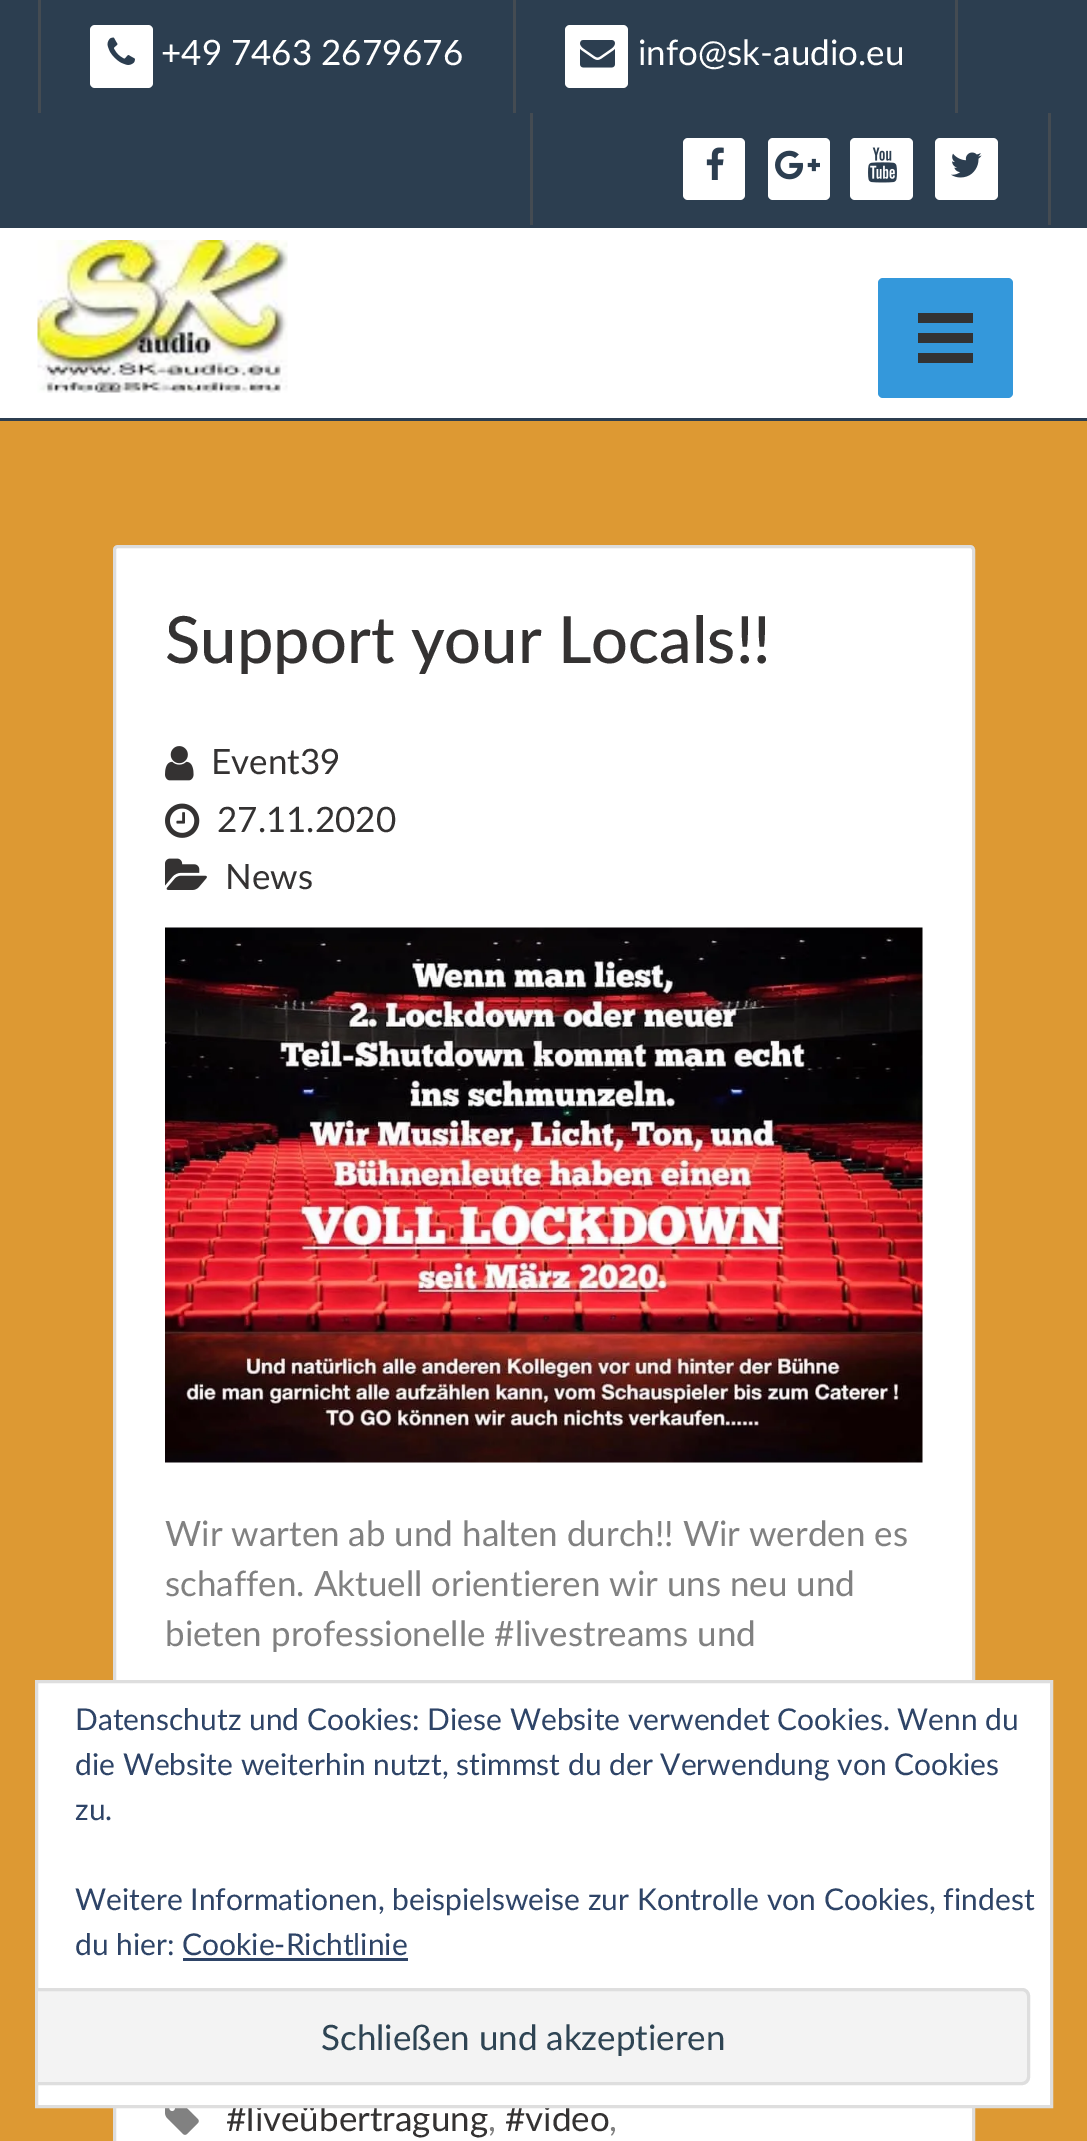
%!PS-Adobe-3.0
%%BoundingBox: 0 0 1087 2141
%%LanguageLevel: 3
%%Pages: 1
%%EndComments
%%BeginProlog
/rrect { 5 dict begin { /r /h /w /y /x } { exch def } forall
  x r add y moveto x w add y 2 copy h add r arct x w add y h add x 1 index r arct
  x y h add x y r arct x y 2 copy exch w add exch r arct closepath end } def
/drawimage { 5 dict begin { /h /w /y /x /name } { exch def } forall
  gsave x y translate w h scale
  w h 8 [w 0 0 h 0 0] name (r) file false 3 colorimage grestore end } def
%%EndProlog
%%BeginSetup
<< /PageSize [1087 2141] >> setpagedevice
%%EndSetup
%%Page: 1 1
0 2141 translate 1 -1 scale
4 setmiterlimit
0.867 0.6 0.2 setrgbcolor
0 0 1087 2141 rectfill
1 setgray
0 228 1087 190 rectfill
0.173 0.243 0.314 setrgbcolor
0 418 1087 3 rectfill
0 0 1087 228 rectfill
0.267 0.294 0.322 setrgbcolor
513 0 3 113 rectfill
38 0 3 113 rectfill
1 setgray
90 25 63 63 5 rrect fill
(images/1.raw) 107 37 28 28 drawimage
0.267 0.294 0.322 setrgbcolor
955 0 3 113 rectfill
1 setgray
565 25 63 63 5 rrect fill
(images/2.raw) 580 40 35 28 drawimage
0.267 0.294 0.322 setrgbcolor
1048 113 3 112 rectfill
530 113 3 112 rectfill
1 setgray
683 138 62 62 5 rrect fill
(images/3.raw) 706 147 18 33 drawimage
768 138 62 62 5 rrect fill
(images/4.raw) 775 150 45 30 drawimage
850 138 63 62 5 rrect fill
(images/5.raw) 868 147 29 36 drawimage
935 138 63 62 5 rrect fill
(images/6.raw) 951 152 31 26 drawimage
(images/7.raw) 37 240 251 153 drawimage
0.204 0.596 0.859 setrgbcolor
878 278 135 120 5 rrect fill
0.2 setgray
918 313 55 10 rectfill
918 333 55 10 rectfill
918 353 55 10 rectfill
1 setgray
114.5 546.5 859 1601 3.5 rrect gsave fill grestore
0.867 setgray
3 setlinewidth
stroke
(images/8.raw) 165 746 29 35 drawimage
(images/9.raw) 165 803 35 35 drawimage
(images/10.raw) 165 858 42 32 drawimage
(images/11.raw) 165 927 758 536 drawimage
(images/12.raw) 165 2108 34 27 drawimage
/Lato-Regular [35 0 0 -35 0 0] selectfont
1 setgray
161 65 moveto (+49 7463 2679676) show
638 65 moveto (info@sk-audio.eu) show
/Lato-Medium [65 0 0 -65 0 0] selectfont
0.204 0.196 0.196 setrgbcolor
165 663 moveto (Support your Locals!!) show
/Lato-Regular [35 0 0 -35 0 0] selectfont
211 774 moveto (Event39) show
217 832 moveto (27.11.2020) show
225 889 moveto (News) show
0.506 setgray
165 1546 moveto (Wir warten ab und halten durch!! Wir werden es) show
165 1596 moveto (schaffen. Aktuell orientieren wir uns neu und) show
165 1646 moveto (bieten professionelle #livestreams und) show
0.204 0.196 0.196 setrgbcolor
226 2131 moveto (#liveübertragung) show
0.506 setgray
488 2131 moveto (,) show
0.204 0.196 0.196 setrgbcolor
505 2131 moveto (#video) show
0.506 setgray
609 2131 moveto (,) show
1 setgray
newpath 36.5 1681.5 moveto 1051.5 1681.5 lineto 1051.5 2106.5 lineto 36.5 2106.5 lineto closepath gsave fill grestore
0.871 setgray
stroke
/Lato-Regular [30 0 0 -30 0 0] selectfont
0.18 0.267 0.404 setrgbcolor
75 1730 moveto (Datenschutz und Cookies: Diese Website verwendet Cookies. Wenn du) show
75 1775 moveto (die Website weiterhin nutzt, stimmst du der Verwendung von Cookies) show
75 1820 moveto (zu.) show
75 1910 moveto (Weitere Informationen, beispielsweise zur Kontrolle von Cookies, findest) show
75 1955 moveto (du hier: Cookie-Richtlinie) show
183 1958 225 3 rectfill
0.953 setgray
newpath 38 1988 moveto 1022 1988 lineto 1026.5 1988 1030 1991.5 1030 1996 curveto 1030 2077 lineto 1030 2081.5 1026.5 2085 1022 2085 curveto 38 2085 lineto closepath fill
gsave
38 1683 1012 422 rectclip
0.871 setgray
19.5 1989.5 1009 94 6.5 rrect stroke
grestore
/Lato-Regular [35 0 0 -35 0 0] selectfont
0.18 0.267 0.325 setrgbcolor
321 2050 moveto (Schließen und akzeptieren) show
showpage
%%EOF
